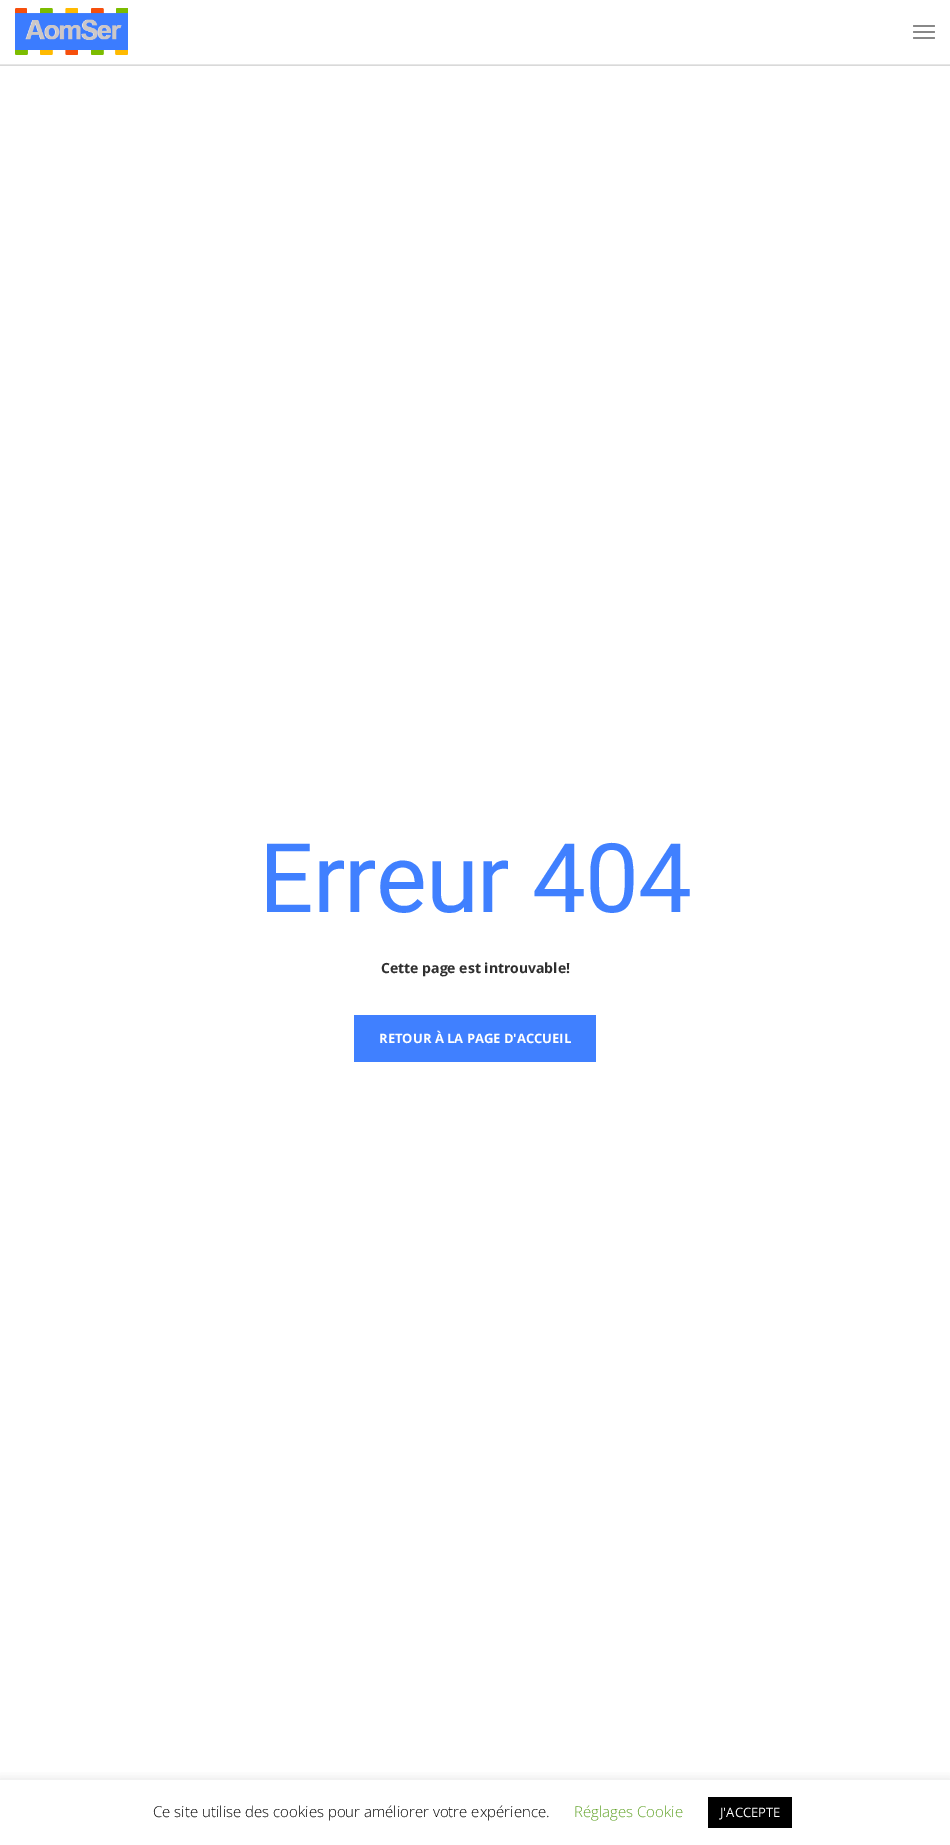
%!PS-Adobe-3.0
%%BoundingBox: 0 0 950 1845
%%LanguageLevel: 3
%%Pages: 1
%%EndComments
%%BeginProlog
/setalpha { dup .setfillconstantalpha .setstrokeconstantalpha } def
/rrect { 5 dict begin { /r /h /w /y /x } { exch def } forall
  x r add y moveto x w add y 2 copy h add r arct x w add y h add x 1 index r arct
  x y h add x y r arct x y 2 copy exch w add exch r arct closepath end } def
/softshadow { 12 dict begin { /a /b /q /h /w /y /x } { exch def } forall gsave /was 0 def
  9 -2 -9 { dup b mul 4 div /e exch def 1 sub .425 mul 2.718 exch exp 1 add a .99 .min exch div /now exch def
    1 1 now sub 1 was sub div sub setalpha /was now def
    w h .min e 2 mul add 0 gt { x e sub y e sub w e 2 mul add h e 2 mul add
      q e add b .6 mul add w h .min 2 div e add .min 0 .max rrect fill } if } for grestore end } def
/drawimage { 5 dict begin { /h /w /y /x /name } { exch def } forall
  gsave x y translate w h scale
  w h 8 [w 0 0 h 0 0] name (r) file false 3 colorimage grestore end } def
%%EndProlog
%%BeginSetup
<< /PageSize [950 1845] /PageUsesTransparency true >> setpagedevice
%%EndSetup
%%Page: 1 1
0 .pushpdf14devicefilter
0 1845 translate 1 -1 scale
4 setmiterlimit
1 setgray
0 0 950 1845 rectfill
0.851 setgray
0 65 950 1 rectfill
0.902 setgray
0 64 950 1 rectfill
(images/1.raw) 15 8 113 47 drawimage
0.533 setgray
913 25 22 2 1 rrect fill
913 31 22 2 1 rrect fill
913 37 22 2 1 rrect fill
0.251 0.502 1 setrgbcolor
354 1015 242 47 rectfill
gsave
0 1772 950 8 rectclip
0.675 0.671 0.671 setrgbcolor
0 1779 950 65 0 5 0.3 softshadow
grestore
0 setgray
708 1797 84 31 rectfill
/Roboto-Regular [96 0 0 -96 0 0] selectfont
0.251 0.502 1 setrgbcolor
259 912 moveto -1 0 (Erreur 404) ashow
/OpenSans-Bold [14 0 0 -14 0 0] selectfont
0.184 setgray
381 973 moveto (Cette page est introuvable!) show
/OpenSans-Bold [13 0 0 -13 0 0] selectfont
1 setgray
379 1043 moveto (RETOUR À LA PAGE D'ACCUEIL) show
/OpenSans-Light [15 0 0 -15 0 0] selectfont
0 setgray
153 1817 moveto (Ce site utilise des cookies pour améliorer votre expérience.) show
0.384 0.639 0.161 setrgbcolor
574 1817 moveto (Réglages Cookie) show
/OpenSans-Regular [13 0 0 -13 0 0] selectfont
1 setgray
720 1817 moveto (J'ACCEPTE) show
.poppdf14devicefilter showpage
%%EOF
